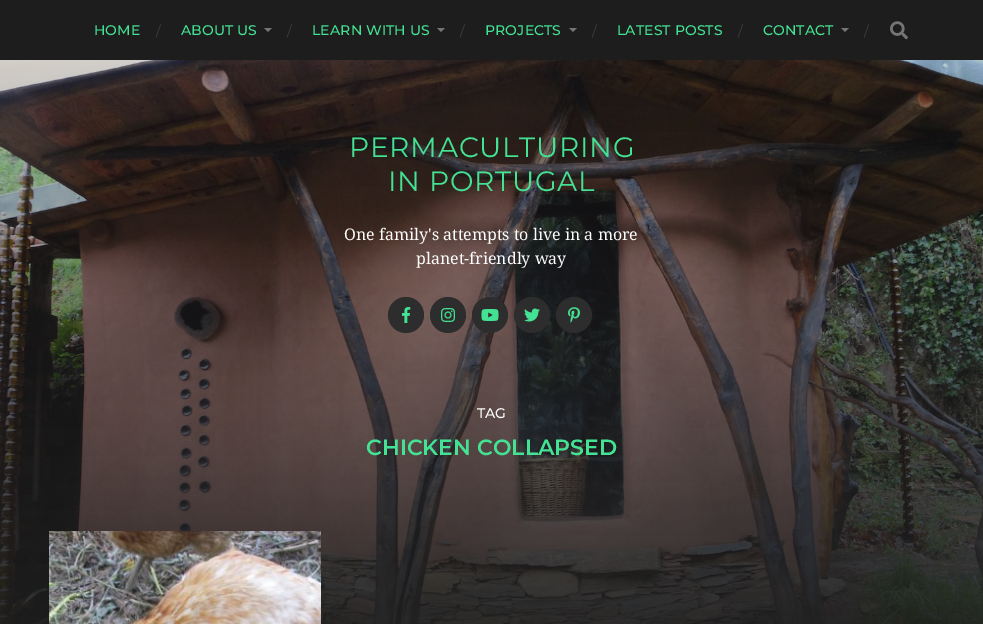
%!PS-Adobe-3.0
%%BoundingBox: 0 0 983 624
%%LanguageLevel: 3
%%Pages: 1
%%EndComments
%%BeginProlog
/drawimage { 5 dict begin { /h /w /y /x /name } { exch def } forall
  gsave x y translate w h scale
  w h 8 [w 0 0 h 0 0] name (r) file false 3 colorimage grestore end } def
%%EndProlog
%%BeginSetup
<< /PageSize [983 624] >> setpagedevice
%%EndSetup
%%Page: 1 1
0 624 translate 1 -1 scale
4 setmiterlimit
0.114 setgray
0 0 983 624 rectfill
0.459 setgray
newpath 264 28 moveto 272 28 lineto 268 32 lineto closepath fill
newpath 437 28 moveto 445 28 lineto 441 32 lineto closepath fill
newpath 569 28 moveto 577 28 lineto 573 32 lineto closepath fill
newpath 841 28 moveto 849 28 lineto 845 32 lineto closepath fill
(images/1.raw) 890 21 18 19 drawimage
(images/2.raw) 0 60 983 564 drawimage
0.176 setgray
newpath 406 315 18 0 360 arc closepath fill
(images/3.raw) 402 307 9 16 drawimage
newpath 448 315 18 0 360 arc closepath fill
(images/4.raw) 441 308 14 14 drawimage
newpath 490 315 18 0 360 arc closepath fill
(images/5.raw) 481 309 18 12 drawimage
newpath 532 315 18 0 360 arc closepath fill
(images/6.raw) 524 308 16 14 drawimage
newpath 574 315 18 0 360 arc closepath fill
(images/7.raw) 568 307 12 16 drawimage
(images/8.raw) 49 531 272 93 drawimage
/Montserrat-Medium [14 0 0 -14 0 0] selectfont
0.267 0.886 0.576 setrgbcolor
94 35 moveto 0.1 0 (HOME) ashow
/Montserrat-Regular [14 0 0 -14 0 0] selectfont
0.239 setgray
156 36 moveto (/) show
/Montserrat-Medium [14 0 0 -14 0 0] selectfont
0.267 0.886 0.576 setrgbcolor
181 35 moveto 0.1 0 (ABOUT US) ashow
/Montserrat-Regular [14 0 0 -14 0 0] selectfont
0.239 setgray
287 36 moveto (/) show
/Montserrat-Medium [14 0 0 -14 0 0] selectfont
0.267 0.886 0.576 setrgbcolor
312 35 moveto 0.1 0 (LEARN WITH US) ashow
/Montserrat-Regular [14 0 0 -14 0 0] selectfont
0.239 setgray
460 36 moveto (/) show
/Montserrat-Medium [14 0 0 -14 0 0] selectfont
0.267 0.886 0.576 setrgbcolor
485 35 moveto 0.1 0 (PROJECTS) ashow
/Montserrat-Regular [14 0 0 -14 0 0] selectfont
0.239 setgray
592 36 moveto (/) show
/Montserrat-Medium [14 0 0 -14 0 0] selectfont
0.267 0.886 0.576 setrgbcolor
617 35 moveto 0.1 0 (LATEST POSTS) ashow
/Montserrat-Regular [14 0 0 -14 0 0] selectfont
0.239 setgray
738 36 moveto (/) show
/Montserrat-Medium [14 0 0 -14 0 0] selectfont
0.267 0.886 0.576 setrgbcolor
763 35 moveto 0.1 0 (CONTACT) ashow
/Montserrat-Regular [14 0 0 -14 0 0] selectfont
0.239 setgray
864 36 moveto (/) show
/Montserrat-Regular [28 0 0 -28 0 0] selectfont
0.267 0.886 0.576 setrgbcolor
349 157 moveto 0.75 0 (PERMACULTURING) ashow
388 191 moveto 0.75 0 (IN PORTUGAL) ashow
/DroidSerif-Regular [16 0 0 -16 0 0] selectfont
1 setgray
344 240 moveto (One family's attempts to live in a more) show
416 264 moveto (planet-friendly way) show
/Montserrat-Medium [14 0 0 -14 0 0] selectfont
477 418 moveto (TAG) show
/Montserrat-SemiBold [22 0 0 -22 0 0] selectfont
0.267 0.886 0.576 setrgbcolor
366 455 moveto (CHICKEN COLLAPSED) show
showpage
%%EOF
